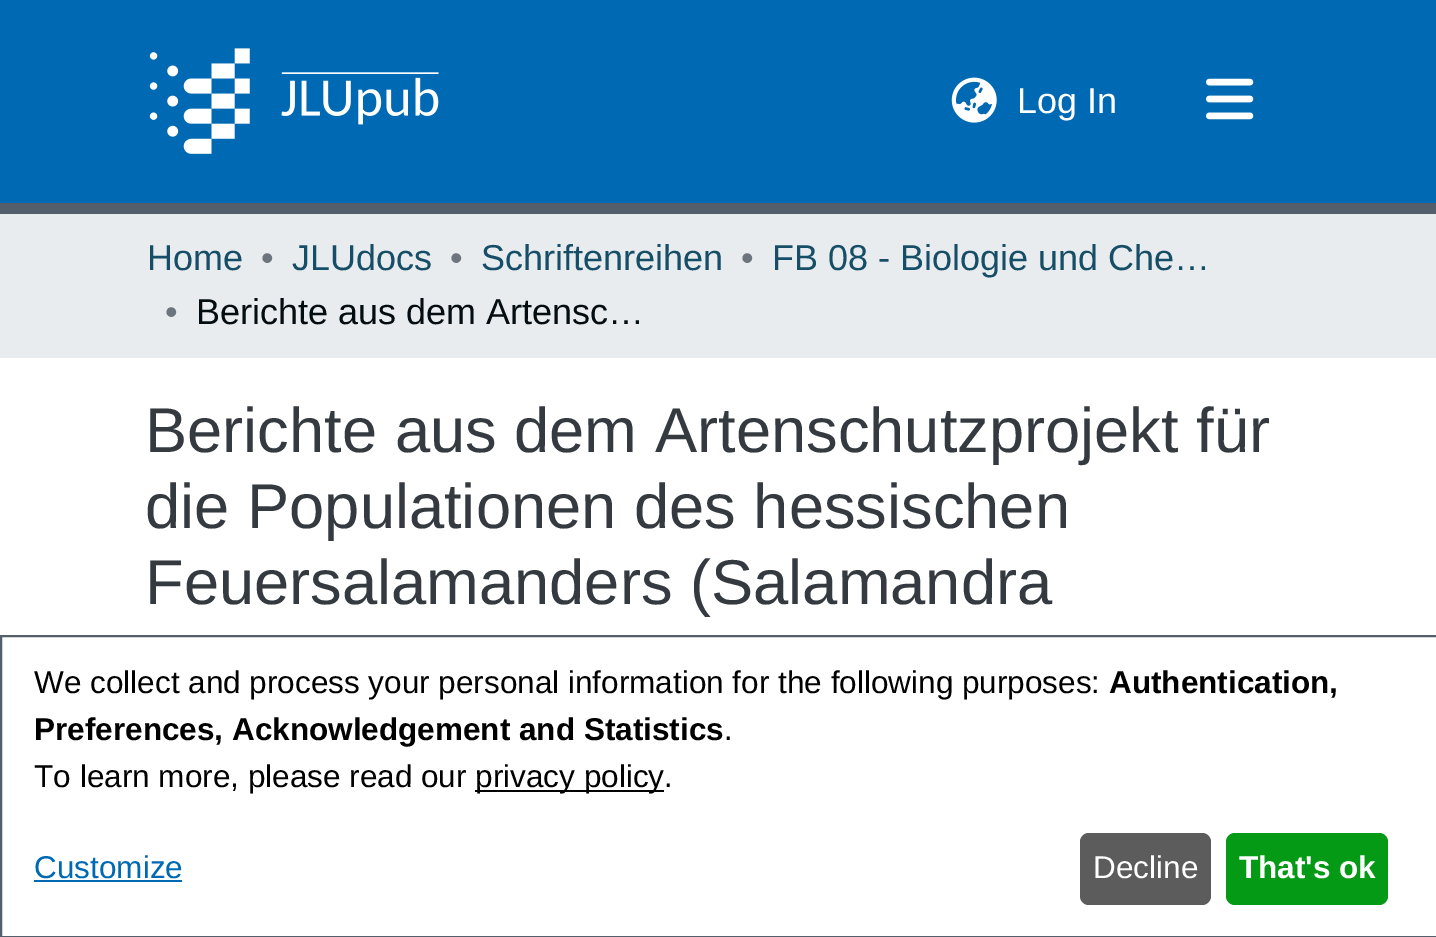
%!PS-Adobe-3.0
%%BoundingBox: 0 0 1436 937
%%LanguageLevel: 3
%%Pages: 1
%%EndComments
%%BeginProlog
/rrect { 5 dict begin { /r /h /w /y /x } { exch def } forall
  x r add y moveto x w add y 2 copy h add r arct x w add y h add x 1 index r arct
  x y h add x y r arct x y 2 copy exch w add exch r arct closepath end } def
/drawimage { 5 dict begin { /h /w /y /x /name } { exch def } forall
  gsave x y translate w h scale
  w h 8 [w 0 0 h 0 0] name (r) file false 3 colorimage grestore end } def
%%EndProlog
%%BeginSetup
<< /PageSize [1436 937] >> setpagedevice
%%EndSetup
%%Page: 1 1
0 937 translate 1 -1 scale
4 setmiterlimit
1 setgray
0 0 1436 937 rectfill
0.325 0.376 0.42 setrgbcolor
0 203 1436 11 rectfill
0 0.412 0.702 setrgbcolor
0 0 1436 203 rectfill
(images/1.raw) 149 48 290 106 drawimage
(images/2.raw) 951 77 46 46 drawimage
(images/3.raw) 1206 78 48 42 drawimage
0.914 0.925 0.937 setrgbcolor
0 214 1436 144 rectfill
0.325 0.376 0.42 setrgbcolor
2 setlinewidth
1 636 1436 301 rectstroke
0 setgray
475 790 189 2 rectfill
0 0.412 0.702 setrgbcolor
34 880 148 2 rectfill
0.361 setgray
1080 833 131 72 9 rrect fill
0.016 0.604 0.086 setrgbcolor
1226 833 162 72 9 rrect fill
/LiberationSans-Regular [36 0 0 -36 0 0] selectfont
1 setgray
1017 113 moveto (Log In) show
0.082 0.306 0.4 setrgbcolor
147 270 moveto (Home) show
0.424 0.459 0.49 setrgbcolor
261 270 moveto (•) show
0.082 0.306 0.4 setrgbcolor
292 270 moveto (JLUdocs) show
0.424 0.459 0.49 setrgbcolor
450 270 moveto (•) show
0.082 0.306 0.4 setrgbcolor
481 270 moveto (Schriftenreihen) show
0.424 0.459 0.49 setrgbcolor
741 270 moveto (•) show
0.082 0.306 0.4 setrgbcolor
772 270 moveto (FB 08 - Biologie und Che…) show
0.424 0.459 0.49 setrgbcolor
165 324 moveto (•) show
0.016 0.051 0.067 setrgbcolor
196 324 moveto (Berichte aus dem Artensc…) show
/LiberationSans-Regular [63.25 0 0 -63.25 0 0] selectfont
0.204 0.227 0.251 setrgbcolor
145 452 moveto (Berichte aus dem Artenschutzprojekt für) show
145 528 moveto (die Populationen des hessischen) show
145 604 moveto (Feuersalamanders \(Salamandra) show
/LiberationSans-Regular [31.5 0 0 -31.5 0 0] selectfont
0 setgray
34 693 moveto (We collect and process your personal information for the following purposes:) show
/LiberationSans-Bold [31.5 0 0 -31.5 0 0] selectfont
1109 693 moveto (Authentication,) show
34 740 moveto (Preferences, Acknowledgement and Statistics) show
/LiberationSans-Regular [31.5 0 0 -31.5 0 0] selectfont
724 740 moveto (.) show
34 787 moveto (To learn more, please read our) show
475 787 moveto (privacy policy.) show
0 0.412 0.702 setrgbcolor
34 878 moveto (Customize) show
1 setgray
1093 878 moveto (Decline) show
/LiberationSans-Bold [31.5 0 0 -31.5 0 0] selectfont
1239 878 moveto (That's ok) show
showpage
%%EOF
